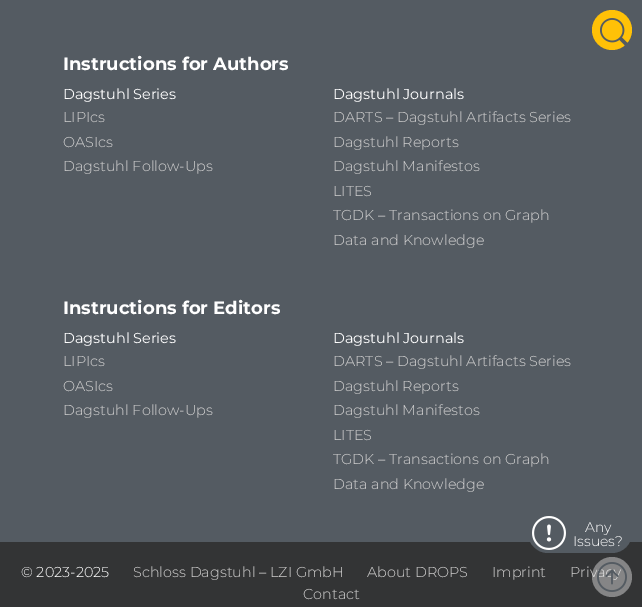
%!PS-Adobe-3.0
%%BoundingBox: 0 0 642 607
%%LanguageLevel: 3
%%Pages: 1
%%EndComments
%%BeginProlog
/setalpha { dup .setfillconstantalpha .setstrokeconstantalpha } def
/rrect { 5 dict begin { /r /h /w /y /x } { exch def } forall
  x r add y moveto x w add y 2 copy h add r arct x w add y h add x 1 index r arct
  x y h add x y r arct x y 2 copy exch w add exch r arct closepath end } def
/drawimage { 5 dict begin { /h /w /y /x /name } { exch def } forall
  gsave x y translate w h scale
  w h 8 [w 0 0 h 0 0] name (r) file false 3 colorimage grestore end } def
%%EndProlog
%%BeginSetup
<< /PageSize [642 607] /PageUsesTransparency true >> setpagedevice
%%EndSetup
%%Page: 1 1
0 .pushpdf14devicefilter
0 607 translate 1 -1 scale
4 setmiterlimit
0.329 0.357 0.384 setrgbcolor
0 0 642 607 rectfill
1 0.757 0.027 setrgbcolor
newpath 612 30 20 0 360 arc closepath fill
(images/1.raw) 600 18 28 28 drawimage
0.2 0.204 0.208 setrgbcolor
0 542 642 65 rectfill
0.329 0.357 0.384 setrgbcolor
528 513 104 40 20 rrect fill
(images/2.raw) 532 516 34 34 drawimage
/Montserrat-Bold [18 0 0 -18 0 0] selectfont
1 setgray
63 70 moveto (Instructions for Authors) show
/Montserrat-Regular [14.4 0 0 -14.4 0 0] selectfont
63 99 moveto (Dagstuhl Series) show
/Montserrat-Light [14.4 0 0 -14.4 0 0] selectfont
0.824 0.82 0.82 setrgbcolor
63 122 moveto (LIPIcs) show
63 147 moveto (OASIcs) show
63 171 moveto (Dagstuhl Follow-Ups) show
/Montserrat-Regular [14.4 0 0 -14.4 0 0] selectfont
1 setgray
333 99 moveto (Dagstuhl Journals) show
/Montserrat-Light [14.4 0 0 -14.4 0 0] selectfont
0.824 0.82 0.82 setrgbcolor
333 122 moveto (DARTS – Dagstuhl Artifacts Series) show
333 147 moveto (Dagstuhl Reports) show
333 171 moveto (Dagstuhl Manifestos) show
333 196 moveto (LITES) show
333 220 moveto (TGDK – Transactions on Graph) show
333 245 moveto (Data and Knowledge) show
/Montserrat-Bold [18 0 0 -18 0 0] selectfont
1 setgray
63 314 moveto (Instructions for Editors) show
/Montserrat-Regular [14.4 0 0 -14.4 0 0] selectfont
63 343 moveto (Dagstuhl Series) show
/Montserrat-Light [14.4 0 0 -14.4 0 0] selectfont
0.824 0.82 0.82 setrgbcolor
63 366 moveto (LIPIcs) show
63 391 moveto (OASIcs) show
63 415 moveto (Dagstuhl Follow-Ups) show
/Montserrat-Regular [14.4 0 0 -14.4 0 0] selectfont
1 setgray
333 343 moveto (Dagstuhl Journals) show
/Montserrat-Light [14.4 0 0 -14.4 0 0] selectfont
0.824 0.82 0.82 setrgbcolor
333 366 moveto (DARTS – Dagstuhl Artifacts Series) show
333 391 moveto (Dagstuhl Reports) show
333 415 moveto (Dagstuhl Manifestos) show
333 440 moveto (LITES) show
333 464 moveto (TGDK – Transactions on Graph) show
333 489 moveto (Data and Knowledge) show
/Montserrat-Light [14 0 0 -14 0 0] selectfont
1 setgray
585 532 moveto (Any) show
573 546 moveto (Issues?) show
/Montserrat-Light [14.4 0 0 -14.4 0 0] selectfont
21 577 moveto (© 2023-2025) show
0.824 0.82 0.82 setrgbcolor
133 577 moveto (Schloss Dagstuhl – LZI GmbH) show
367 577 moveto (About DROPS) show
492 577 moveto (Imprint) show
570 577 moveto (Privacy) show
0.4 setalpha
1 setgray
newpath 612 577 20 0 360 arc closepath fill
1 setalpha
(images/3.raw) 597 562 30 30 drawimage
0.824 0.82 0.82 setrgbcolor
303 599 moveto (Contact) show
.poppdf14devicefilter showpage
%%EOF
